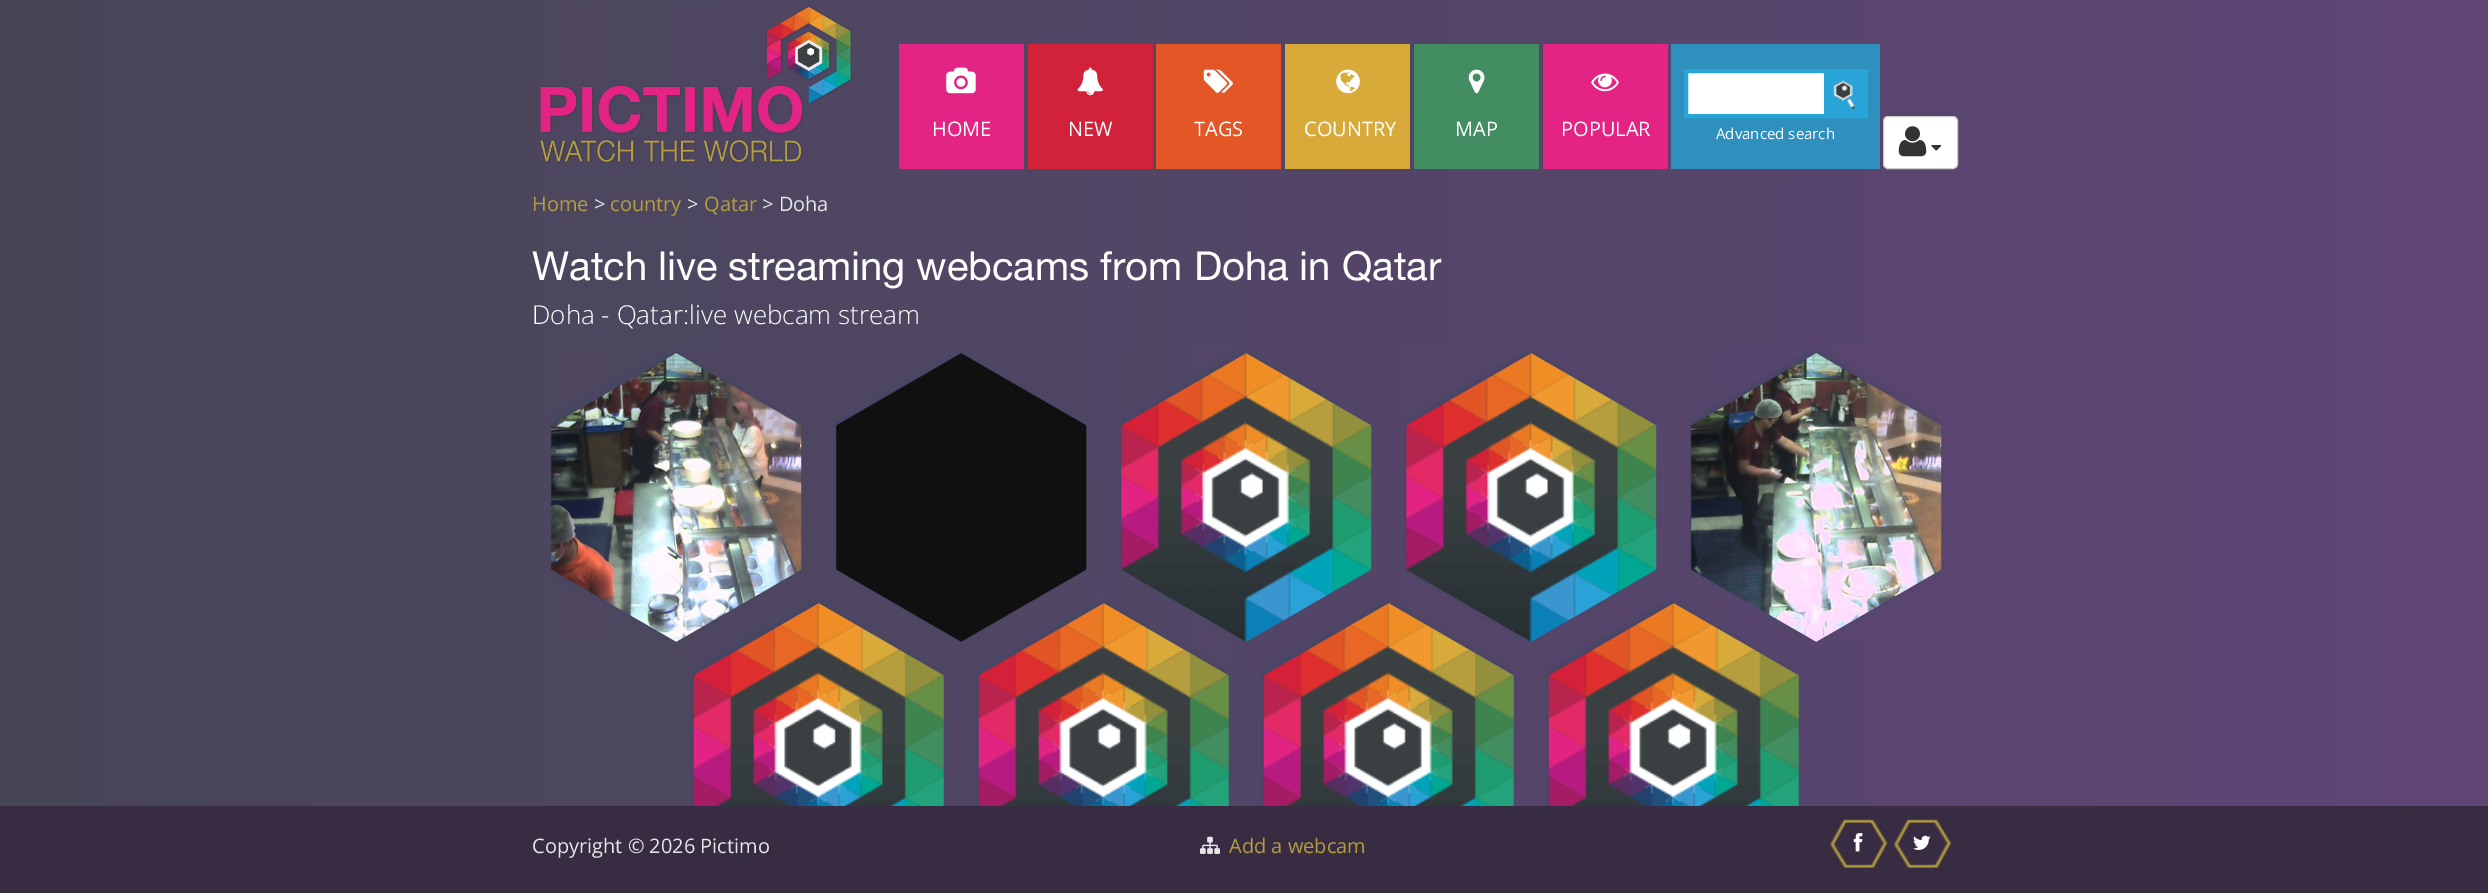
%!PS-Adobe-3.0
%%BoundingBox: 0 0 2488 893
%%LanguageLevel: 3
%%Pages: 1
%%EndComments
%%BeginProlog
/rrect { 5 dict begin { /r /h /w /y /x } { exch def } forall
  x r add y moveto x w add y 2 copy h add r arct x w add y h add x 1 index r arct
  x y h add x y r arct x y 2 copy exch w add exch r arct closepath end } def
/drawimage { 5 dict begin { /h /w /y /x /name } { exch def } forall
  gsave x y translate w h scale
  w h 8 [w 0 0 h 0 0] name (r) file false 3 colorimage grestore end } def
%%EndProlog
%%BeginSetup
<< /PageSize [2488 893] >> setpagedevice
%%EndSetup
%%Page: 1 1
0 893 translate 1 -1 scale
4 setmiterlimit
1 setgray
0 0 2488 893 rectfill
gsave newpath 0 0 moveto 2488 0 lineto 2488 806 lineto 0 806 lineto closepath clip newpath
<< /ShadingType 2 /ColorSpace /DeviceRGB /Coords [0 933 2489 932] /Extend [true true] /Function << /FunctionType 2 /Domain [0 1] /C0 [0.278 0.275 0.341] /C1 [0.373 0.271 0.463] /N 1 >> >> shfill grestore
(images/1.raw) 540 7 312 156 drawimage
0.89 0.141 0.518 setrgbcolor
899 44 125 125 rectfill
(images/2.raw) 946 67 30 27 drawimage
0.824 0.133 0.227 setrgbcolor
1028 44 125 125 rectfill
(images/3.raw) 1077 67 26 29 drawimage
0.89 0.337 0.149 setrgbcolor
1156 44 125 125 rectfill
(images/4.raw) 1203 69 30 24 drawimage
0.847 0.667 0.227 setrgbcolor
1285 44 125 125 rectfill
(images/5.raw) 1336 69 24 25 drawimage
0.259 0.557 0.384 setrgbcolor
1414 44 125 125 rectfill
(images/6.raw) 1468 69 17 25 drawimage
0.89 0.141 0.518 setrgbcolor
1543 44 125 125 rectfill
(images/7.raw) 1591 73 28 19 drawimage
0.184 0.565 0.745 setrgbcolor
1671 44 209 125 rectfill
1 setgray
1688 73 136 41 rectfill
0.161 0.643 0.847 setrgbcolor
4 setlinewidth
1686 71 180 45 rectstroke
1824 73 40 41 rectfill
(images/8.raw) 1833 80 23 30 drawimage
1 setgray
1883.5 116.5 74 52 4.5 rrect gsave fill grestore
0.8 setgray
1 setlinewidth
stroke
(images/9.raw) 1898 126 29 31 drawimage
(images/10.raw) 1931 145 11 6 drawimage
(images/11.raw) 549 350 253 292 drawimage
(images/12.raw) 834 350 253 292 drawimage
(images/13.raw) 1119 349 253 293 drawimage
(images/14.raw) 1404 348 254 294 drawimage
(images/15.raw) 1689 348 253 294 drawimage
(images/16.raw) 691 600 253 206 drawimage
(images/17.raw) 976 599 254 207 drawimage
(images/18.raw) 1261 599 254 207 drawimage
(images/19.raw) 1546 598 254 208 drawimage
0.22 0.173 0.259 setrgbcolor
0 806 2488 87 rectfill
(images/20.raw) 1200 836 20 18 drawimage
(images/21.raw) 1829 819 59 49 drawimage
(images/22.raw) 1853 833 10 19 drawimage
(images/23.raw) 1893 819 59 49 drawimage
(images/24.raw) 1913 835 18 15 drawimage
/OpenSans-Regular [20 0 0 -20 0 0] selectfont
1 setgray
932 136 moveto (HOME) show
1068 136 moveto (NEW) show
1194 136 moveto (TAGS) show
1304 136 moveto (COUNTRY) show
1455 136 moveto (MAP) show
1561 136 moveto (POPULAR) show
/OpenSans-Regular [15 0 0 -15 0 0] selectfont
1716 139 moveto (Advanced search) show
/OpenSans-Regular [20 0 0 -20 0 0] selectfont
0.714 0.616 0.243 setrgbcolor
532 211 moveto (Home) show
0.906 setgray
594 211 moveto (>) show
0.714 0.616 0.243 setrgbcolor
610 211 moveto (country) show
0.906 setgray
687 211 moveto (>) show
0.714 0.616 0.243 setrgbcolor
704 211 moveto (Qatar) show
0.906 setgray
762 211 moveto (> Doha) show
/HelveticaNeue-Regular [40 0 0 -40 0 0] selectfont
1 setgray
532 280 moveto (Watch live streaming webcams from Doha in Qatar) show
/OpenSans-Light [26 0 0 -26 0 0] selectfont
532 324 moveto (Doha - Qatar:live webcam stream) show
/OpenSans-Regular [20 0 0 -20 0 0] selectfont
0.906 setgray
532 853 moveto (Copyright © 2026 Pictimo) show
0.714 0.616 0.243 setrgbcolor
1229 853 moveto (Add a webcam) show
showpage
%%EOF
